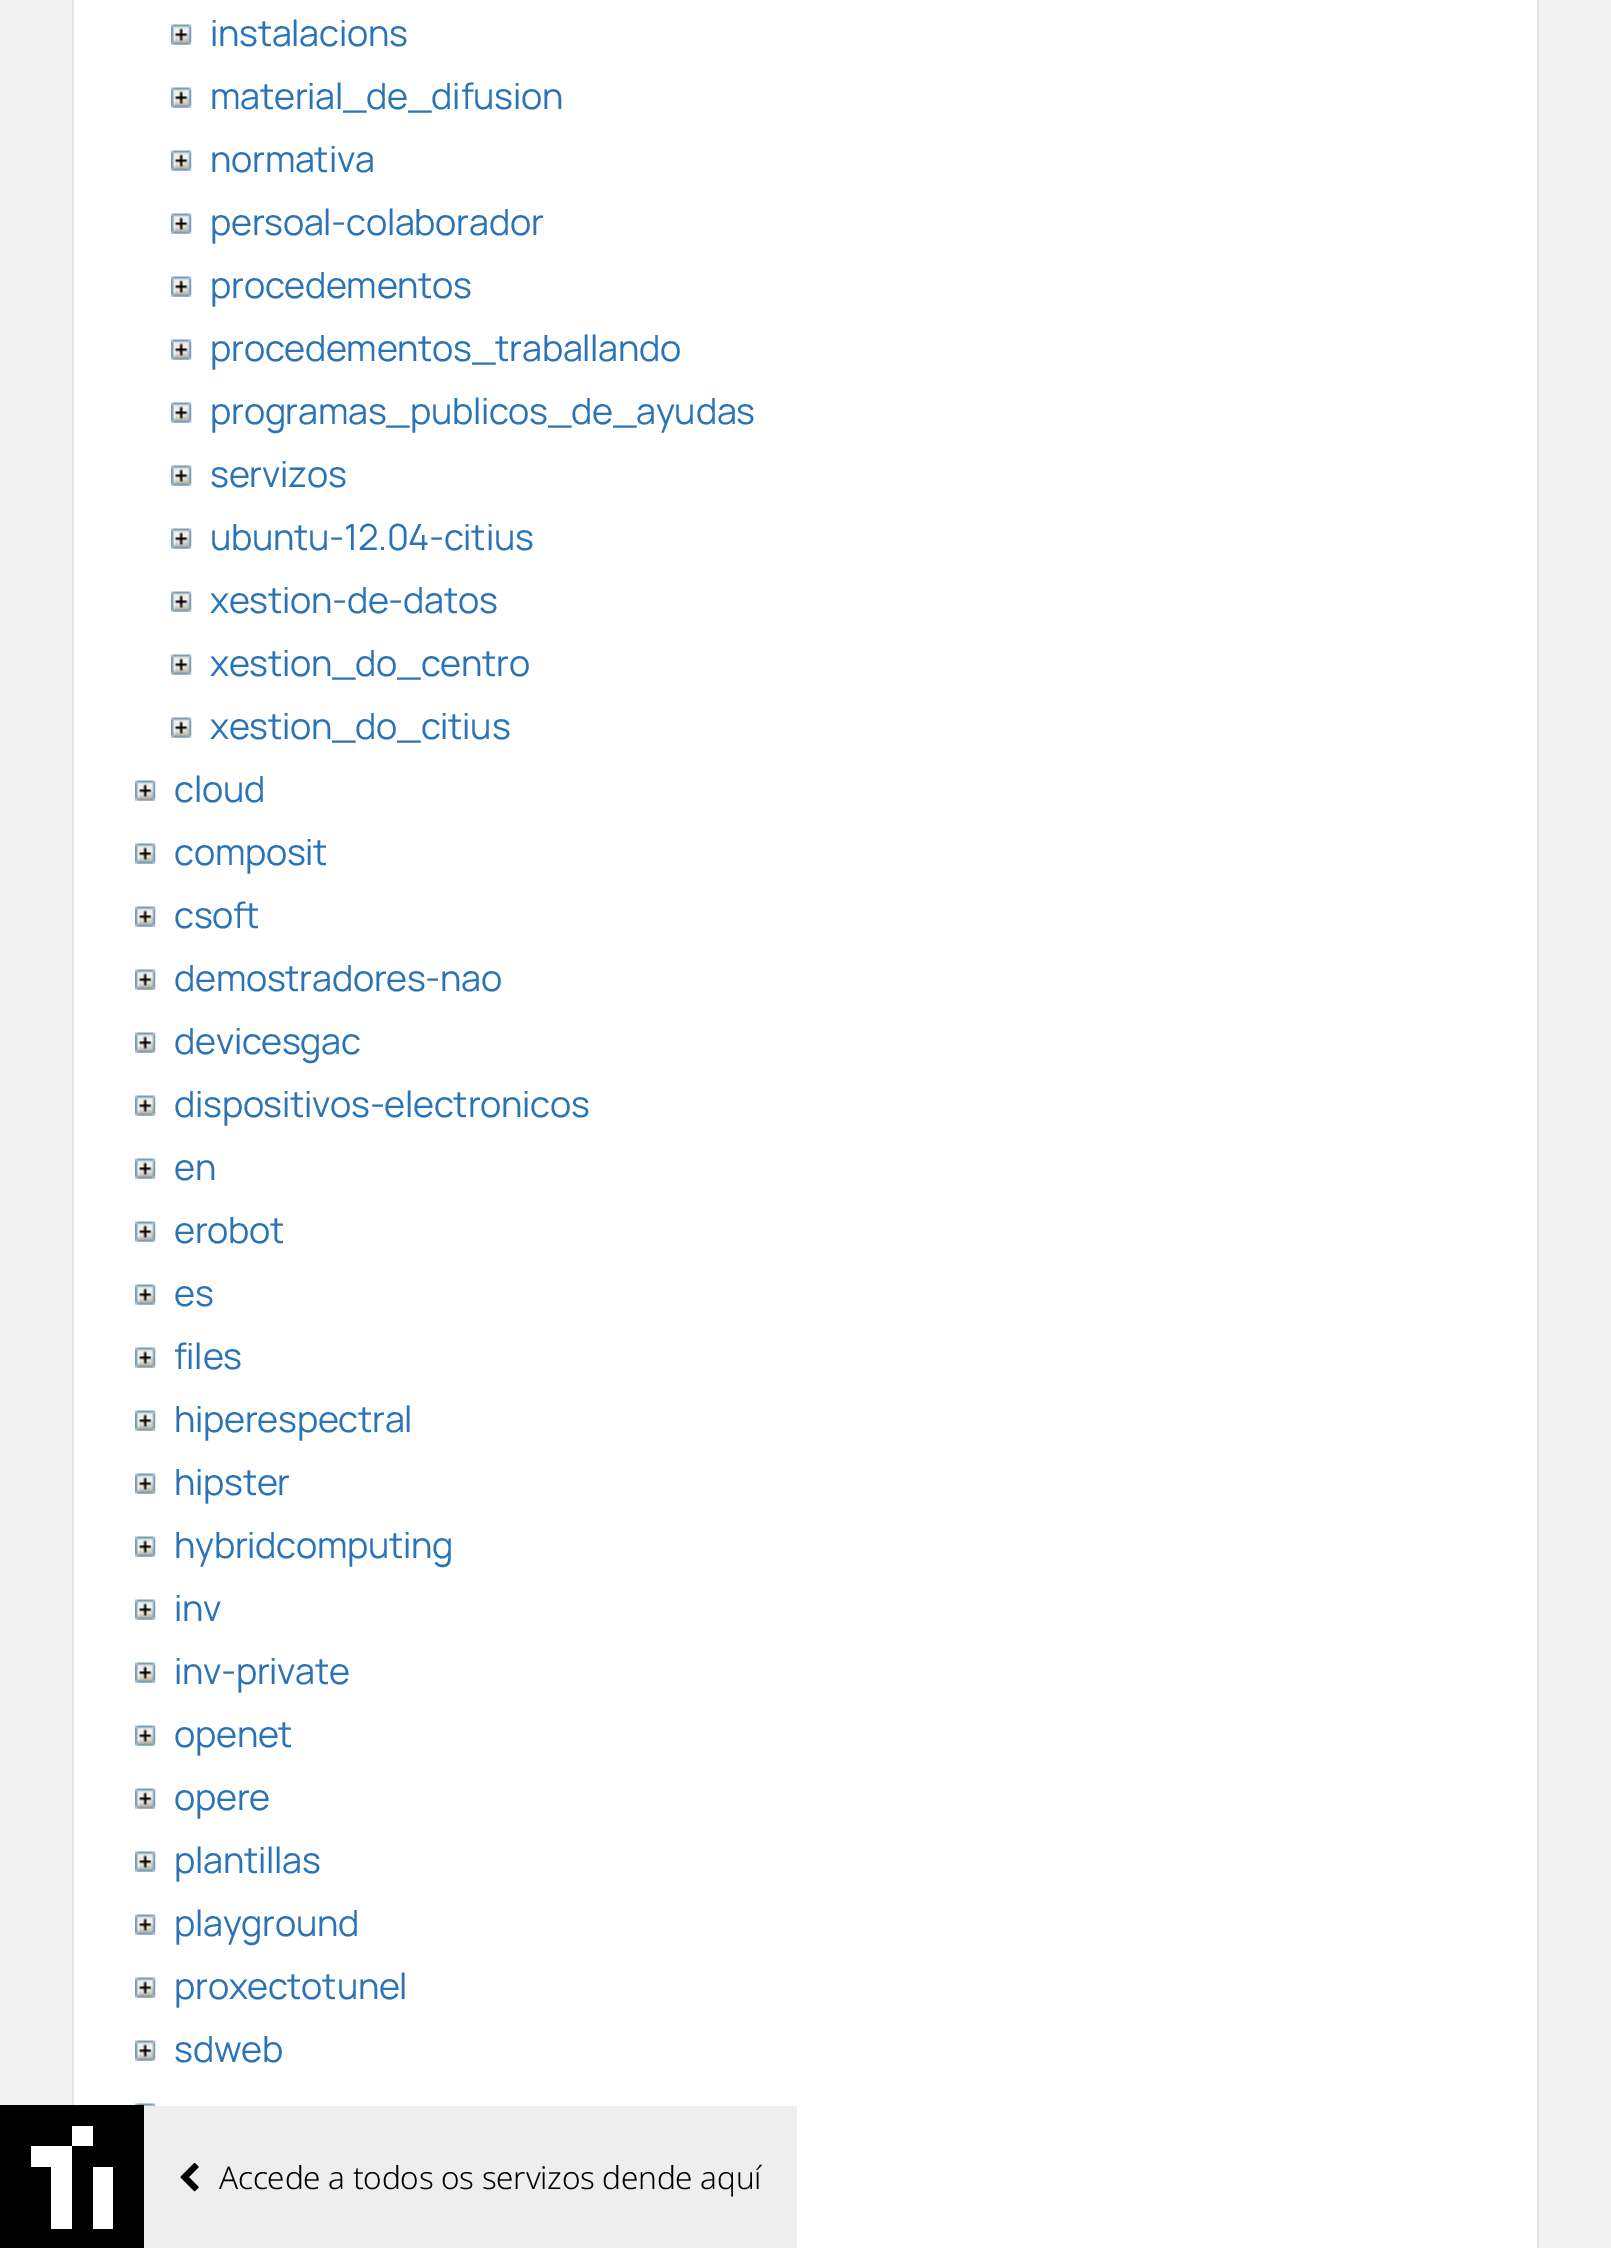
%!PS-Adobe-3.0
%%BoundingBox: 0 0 1611 2248
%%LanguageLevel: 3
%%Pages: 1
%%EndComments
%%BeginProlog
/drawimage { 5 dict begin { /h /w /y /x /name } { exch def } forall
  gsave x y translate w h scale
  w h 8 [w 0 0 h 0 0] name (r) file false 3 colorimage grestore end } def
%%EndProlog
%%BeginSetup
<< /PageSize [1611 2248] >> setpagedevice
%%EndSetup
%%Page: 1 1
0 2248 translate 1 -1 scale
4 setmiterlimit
0.949 setgray
0 0 1611 2248 rectfill
1 setgray
74 0 1463 2248 rectfill
0.898 setgray
1537 0 2 2248 rectfill
72 0 2 2105 rectfill
(images/1.raw) 171 24 21 21 drawimage
(images/1.raw) 171 87 21 21 drawimage
(images/1.raw) 171 150 21 21 drawimage
(images/2.raw) 171 213 21 21 drawimage
(images/1.raw) 171 276 21 21 drawimage
(images/1.raw) 171 339 21 21 drawimage
(images/1.raw) 171 402 21 21 drawimage
(images/1.raw) 171 465 21 21 drawimage
(images/1.raw) 171 528 21 21 drawimage
(images/1.raw) 171 591 21 21 drawimage
(images/1.raw) 171 654 21 21 drawimage
(images/1.raw) 171 717 21 21 drawimage
(images/1.raw) 135 780 21 21 drawimage
(images/1.raw) 135 843 21 21 drawimage
(images/1.raw) 135 906 21 21 drawimage
(images/1.raw) 135 969 21 21 drawimage
(images/1.raw) 135 1032 21 21 drawimage
(images/1.raw) 135 1095 21 21 drawimage
(images/1.raw) 135 1158 21 21 drawimage
(images/3.raw) 135 1221 21 21 drawimage
(images/1.raw) 135 1284 21 21 drawimage
(images/1.raw) 135 1347 21 21 drawimage
(images/1.raw) 135 1410 21 21 drawimage
(images/1.raw) 135 1473 21 21 drawimage
(images/1.raw) 135 1536 21 21 drawimage
(images/1.raw) 135 1599 21 21 drawimage
(images/1.raw) 135 1662 21 21 drawimage
(images/2.raw) 135 1725 21 21 drawimage
(images/1.raw) 135 1788 21 21 drawimage
(images/1.raw) 135 1851 21 21 drawimage
(images/1.raw) 135 1914 21 21 drawimage
(images/1.raw) 135 1977 21 21 drawimage
(images/1.raw) 135 2040 21 21 drawimage
(images/4.raw) 135 2103 21 3 drawimage
1 setgray
31 2126 43 103 rectfill
0 setgray
newpath 0 2177 moveto 0 2105 lineto 144 2105 lineto 144 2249 lineto 0 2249 lineto closepath 72 2187 moveto 72 2146 lineto 93 2146 lineto 93 2126 lineto 72 2126 lineto 72 2146 lineto 31 2146 lineto 31 2167 lineto 51 2167 lineto 51 2229 lineto 72 2229 lineto closepath 113 2198 moveto 113 2167 lineto 93 2167 lineto 93 2229 lineto 113 2229 lineto closepath fill
0.933 setgray
144 2106 653 142 rectfill
(images/5.raw) 180 2162 19 30 drawimage
/Manrope-Regular [36 0 0 -36 0 0] selectfont
0.169 0.451 0.718 setrgbcolor
210 46 moveto -0.35 0 (instalacions) ashow
210 109 moveto -0.35 0 (material_de_difusion) ashow
210 172 moveto -0.35 0 (normativa) ashow
210 235 moveto -0.35 0 (persoal-colaborador) ashow
210 298 moveto -0.35 0 (procedementos) ashow
210 361 moveto -0.35 0 (procedementos_traballando) ashow
210 424 moveto -0.35 0 (programas_publicos_de_ayudas) ashow
210 487 moveto -0.35 0 (servizos) ashow
210 550 moveto -0.35 0 (ubuntu-12.04-citius) ashow
210 613 moveto -0.35 0 (xestion-de-datos) ashow
210 676 moveto -0.35 0 (xestion_do_centro) ashow
210 739 moveto -0.35 0 (xestion_do_citius) ashow
174 802 moveto -0.35 0 (cloud) ashow
174 865 moveto -0.35 0 (composit) ashow
174 928 moveto -0.35 0 (csoft) ashow
174 991 moveto -0.35 0 (demostradores-nao) ashow
174 1054 moveto -0.35 0 (devicesgac) ashow
174 1117 moveto -0.35 0 (dispositivos-electronicos) ashow
174 1180 moveto -0.35 0 (en) ashow
174 1243 moveto -0.35 0 (erobot) ashow
174 1306 moveto -0.35 0 (es) ashow
174 1369 moveto -0.35 0 (files) ashow
174 1432 moveto -0.35 0 (hiperespectral) ashow
174 1495 moveto -0.35 0 (hipster) ashow
174 1558 moveto -0.35 0 (hybridcomputing) ashow
174 1621 moveto -0.35 0 (inv) ashow
174 1684 moveto -0.35 0 (inv-private) ashow
174 1747 moveto -0.35 0 (openet) ashow
174 1810 moveto -0.35 0 (opere) ashow
174 1873 moveto -0.35 0 (plantillas) ashow
174 1936 moveto -0.35 0 (playground) ashow
174 1999 moveto -0.35 0 (proxectotunel) ashow
174 2062 moveto -0.35 0 (sdweb) ashow
/NotoSans-Light [31.5 0 0 -31.5 0 0] selectfont
0 setgray
219 2189 moveto -0.25 0 (Accede a todos os servizos dende aquí) ashow
showpage
%%EOF
